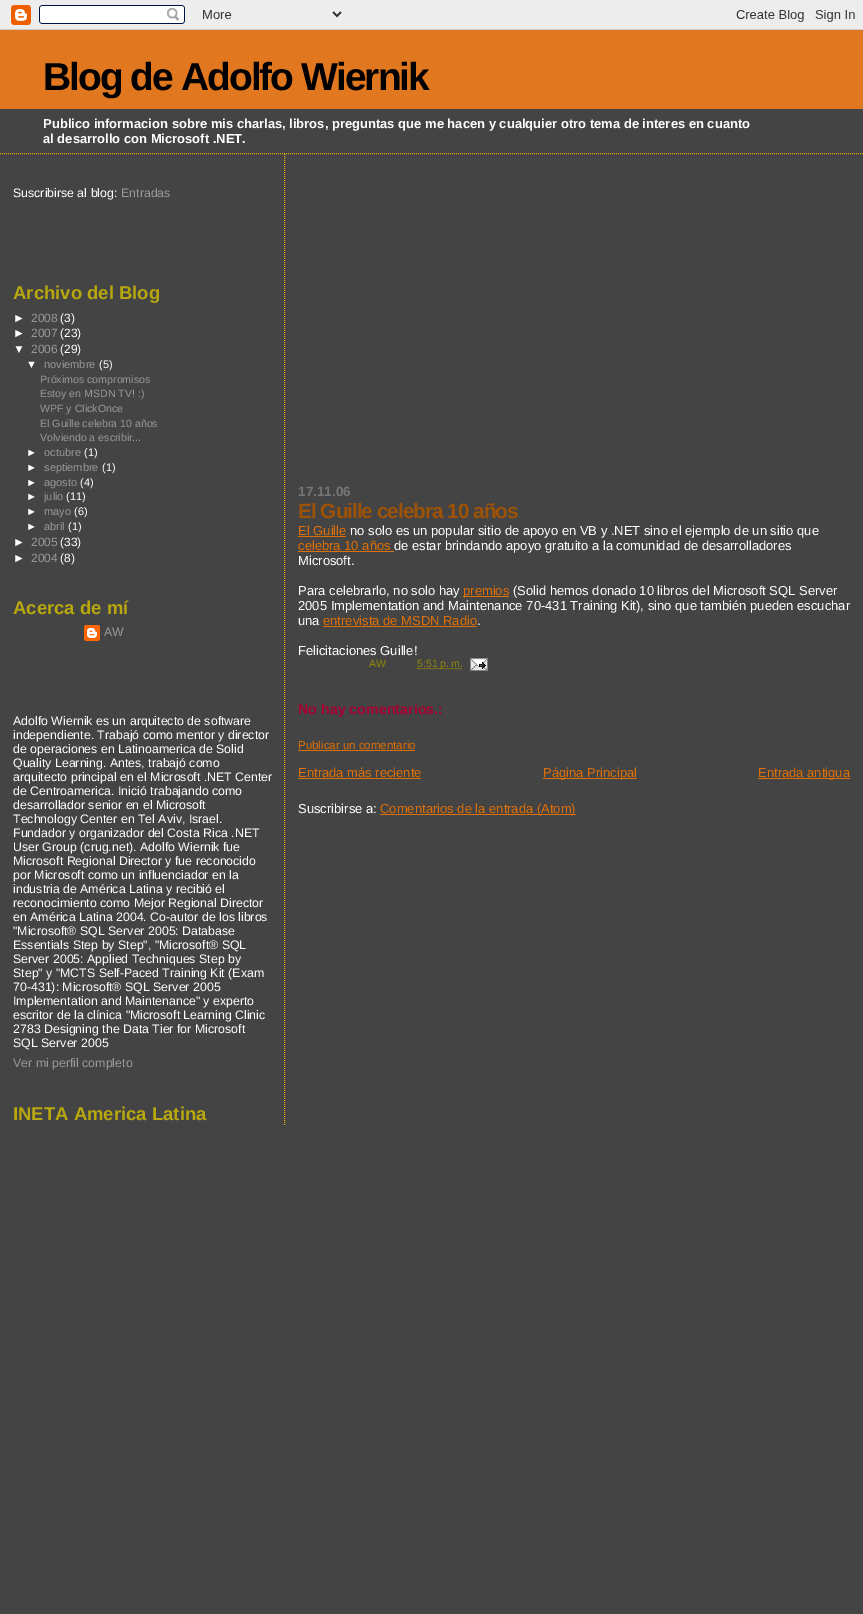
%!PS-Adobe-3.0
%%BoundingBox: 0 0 863 1614
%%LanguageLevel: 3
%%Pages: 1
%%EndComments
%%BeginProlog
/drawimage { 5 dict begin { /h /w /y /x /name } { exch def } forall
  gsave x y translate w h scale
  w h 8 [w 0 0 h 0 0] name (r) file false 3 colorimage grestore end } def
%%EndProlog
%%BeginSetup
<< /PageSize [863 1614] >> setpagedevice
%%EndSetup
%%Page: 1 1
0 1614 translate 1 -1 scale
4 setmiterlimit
0.267 setgray
0 0 863 1614 rectfill
(images/1.raw) 0 0 863 30 drawimage
0.878 0.678 0.071 setrgbcolor
[1 1] 0 setdash
newpath 0 153.5 moveto 863 153.5 lineto stroke
0.882 0.467 0.118 setrgbcolor
0 30 863 79 rectfill
(images/2.raw) 84 625 16 16 drawimage
0.878 0.678 0.071 setrgbcolor
newpath 284.5 154 moveto 284.5 1125 lineto stroke
0.871 0.439 0.031 setrgbcolor
298 536 48 1 rectfill
298 551 96 1 rectfill
463 596 46 1 rectfill
323 626 154 1 rectfill
0.588 0.541 0.039 setrgbcolor
newpath 416.5 668.5 moveto 462 668.5 lineto stroke
(images/3.raw) 470 658 18 13 drawimage
0.871 0.439 0.031 setrgbcolor
298 750 117 1 rectfill
298 778 123 1 rectfill
543 778 94 1 rectfill
758 778 92 1 rectfill
380 814 196 1 rectfill
/LiberationSans-Bold [39 0 0 -39 0 0] selectfont
0 setgray
43 90 moveto -2 0 (Blog de Adolfo Wiernik) ashow
/LiberationSans-Bold [13 0 0 -13 0 0] selectfont
1 setgray
43 128 moveto (Publico informacion sobre mis charlas, libros, preguntas que me hacen y cualquier otro tema de interes en cuanto) show
43 143 moveto (al desarrollo con Microsoft .NET.) show
/LiberationSans-Regular [12.35 0 0 -12.35 0 0] selectfont
13 197 moveto (Suscribirse al blog:) show
0.6 setgray
121 197 moveto (Entradas) show
/LiberationSans-Bold [18.5 0 0 -18.5 0 0] selectfont
0.722 0.659 0.051 setrgbcolor
13 299 moveto (Archivo del Blog) show
/LiberationSans-Regular [12 0 0 -12 0 0] selectfont
1 setgray
13 322 moveto (►) show
0.6 setgray
31 322 moveto (2008) show
1 setgray
60 322 moveto (\(3\)) show
13 337 moveto (►) show
0.6 setgray
31 337 moveto (2007) show
1 setgray
60 337 moveto (\(23\)) show
13 353 moveto (▼) show
0.6 setgray
31 353 moveto (2006) show
1 setgray
60 353 moveto (\(29\)) show
/LiberationSans-Regular [11 0 0 -11 0 0] selectfont
26 368 moveto (▼) show
0.6 setgray
44 368 moveto (noviembre) show
1 setgray
99 368 moveto (\(5\)) show
/LiberationSans-Regular [10.6 0 0 -10.6 0 0] selectfont
0.6 setgray
40 383 moveto (Próximos compromisos) show
40 397 moveto (Estoy en MSDN TV! :\)) show
40 412 moveto (WPF y ClickOnce) show
40 427 moveto (El Guille celebra 10 años) show
40 441 moveto (Volviendo a escribir...) show
/LiberationSans-Regular [11 0 0 -11 0 0] selectfont
1 setgray
26 456 moveto (►) show
0.6 setgray
44 456 moveto (octubre) show
1 setgray
84 456 moveto (\(1\)) show
26 471 moveto (►) show
0.6 setgray
44 471 moveto (septiembre) show
1 setgray
102 471 moveto (\(1\)) show
26 486 moveto (►) show
0.6 setgray
44 486 moveto (agosto) show
1 setgray
80 486 moveto (\(4\)) show
26 500 moveto (►) show
0.6 setgray
44 500 moveto (julio) show
1 setgray
66 500 moveto (\(11\)) show
26 515 moveto (►) show
0.6 setgray
44 515 moveto (mayo) show
1 setgray
74 515 moveto (\(6\)) show
26 530 moveto (►) show
0.6 setgray
44 530 moveto (abril) show
1 setgray
68 530 moveto (\(1\)) show
/LiberationSans-Regular [12 0 0 -12 0 0] selectfont
13 546 moveto (►) show
0.6 setgray
31 546 moveto (2005) show
1 setgray
60 546 moveto (\(33\)) show
13 562 moveto (►) show
0.6 setgray
31 562 moveto (2004) show
1 setgray
60 562 moveto (\(8\)) show
/LiberationSans-Bold [18.5 0 0 -18.5 0 0] selectfont
0.722 0.659 0.051 setrgbcolor
13 614 moveto (Acerca de mí) show
/LiberationSans-Regular [12.35 0 0 -12.35 0 0] selectfont
0.6 setgray
104 636 moveto (AW) show
1 setgray
13 725 moveto (Adolfo Wiernik es un arquitecto de software) show
13 739 moveto (independiente. Trabajó como mentor y director) show
13 753 moveto (de operaciones en Latinoamerica de Solid) show
13 767 moveto (Quality Learning. Antes, trabajó como) show
13 781 moveto (arquitecto principal en el Microsoft .NET Center) show
13 795 moveto (de Centroamerica. Inició trabajando como) show
13 809 moveto (desarrollador senior en el Microsoft) show
13 823 moveto (Technology Center en Tel Aviv, Israel.) show
13 837 moveto (Fundador y organizador del Costa Rica .NET) show
13 851 moveto (User Group \(crug.net\). Adolfo Wiernik fue) show
13 865 moveto (Microsoft Regional Director y fue reconocido) show
13 879 moveto (por Microsoft como un influenciador en la) show
13 893 moveto (industria de América Latina y recibió el) show
13 907 moveto (reconocimiento como Mejor Regional Director) show
13 921 moveto (en América Latina 2004. Co-autor de los libros) show
13 935 moveto ("Microsoft® SQL Server 2005: Database) show
13 949 moveto (Essentials Step by Step", "Microsoft® SQL) show
13 963 moveto (Server 2005: Applied Techniques Step by) show
13 977 moveto (Step" y "MCTS Self-Paced Training Kit \(Exam) show
13 991 moveto (70-431\): Microsoft® SQL Server 2005) show
13 1005 moveto (Implementation and Maintenance" y experto) show
13 1019 moveto (escritor de la clínica "Microsoft Learning Clinic) show
13 1033 moveto (2783 Designing the Data Tier for Microsoft) show
13 1047 moveto (SQL Server 2005) show
0.6 setgray
13 1067 moveto (Ver mi perfil completo) show
/LiberationSans-Bold [18.5 0 0 -18.5 0 0] selectfont
0.722 0.659 0.051 setrgbcolor
13 1120 moveto (INETA America Latina) show
/LiberationSans-Bold [13.5 0 0 -13.5 0 0] selectfont
0.467 setgray
298 496 moveto (17.11.06) show
/LiberationSans-Bold [20.75 0 0 -20.75 0 0] selectfont
0.62 0.322 0.02 setrgbcolor
298 518 moveto -1 0 (El Guille celebra 10 años) ashow
/LiberationSans-Regular [13 0 0 -13 0 0] selectfont
0.871 0.439 0.031 setrgbcolor
298 535 moveto (El Guille) show
1 setgray
350 535 moveto (no solo es un popular sitio de apoyo en VB y .NET sino el ejemplo de un sitio que) show
0.871 0.439 0.031 setrgbcolor
298 550 moveto (celebra 10 años) show
1 setgray
394 550 moveto (de estar brindando apoyo gratuito a la comunidad de desarrolladores) show
298 565 moveto (Microsoft.) show
298 595 moveto (Para celebrarlo, no solo hay) show
0.871 0.439 0.031 setrgbcolor
463 595 moveto (premios) show
1 setgray
513 595 moveto (\(Solid hemos donado 10 libros del Microsoft SQL Server) show
298 610 moveto (2005 Implementation and Maintenance 70-431 Training Kit\), sino que también pueden escuchar) show
298 625 moveto (una) show
0.871 0.439 0.031 setrgbcolor
323 625 moveto (entrevista de MSDN Radio) show
1 setgray
477 625 moveto (.) show
298 655 moveto (Felicitaciones Guille!) show
/LiberationSans-Regular [10.5 0 0 -10.5 0 0] selectfont
0.588 0.541 0.039 setrgbcolor
369 667 moveto (AW) show
417 667 moveto (5:51 p. m.) show
/LiberationSans-Bold [14.25 0 0 -14.25 0 0] selectfont
0.667 0 0.2 setrgbcolor
298 714 moveto (No hay comentarios.:) show
/LiberationSans-Regular [11.5 0 0 -11.5 0 0] selectfont
0.871 0.439 0.031 setrgbcolor
298 749 moveto (Publicar un comentario) show
/LiberationSans-Regular [13 0 0 -13 0 0] selectfont
298 777 moveto (Entrada más reciente) show
543 777 moveto (Página Principal) show
758 777 moveto (Entrada antigua) show
1 setgray
298 813 moveto (Suscribirse a:) show
0.871 0.439 0.031 setrgbcolor
380 813 moveto (Comentarios de la entrada \(Atom\)) show
showpage
%%EOF
